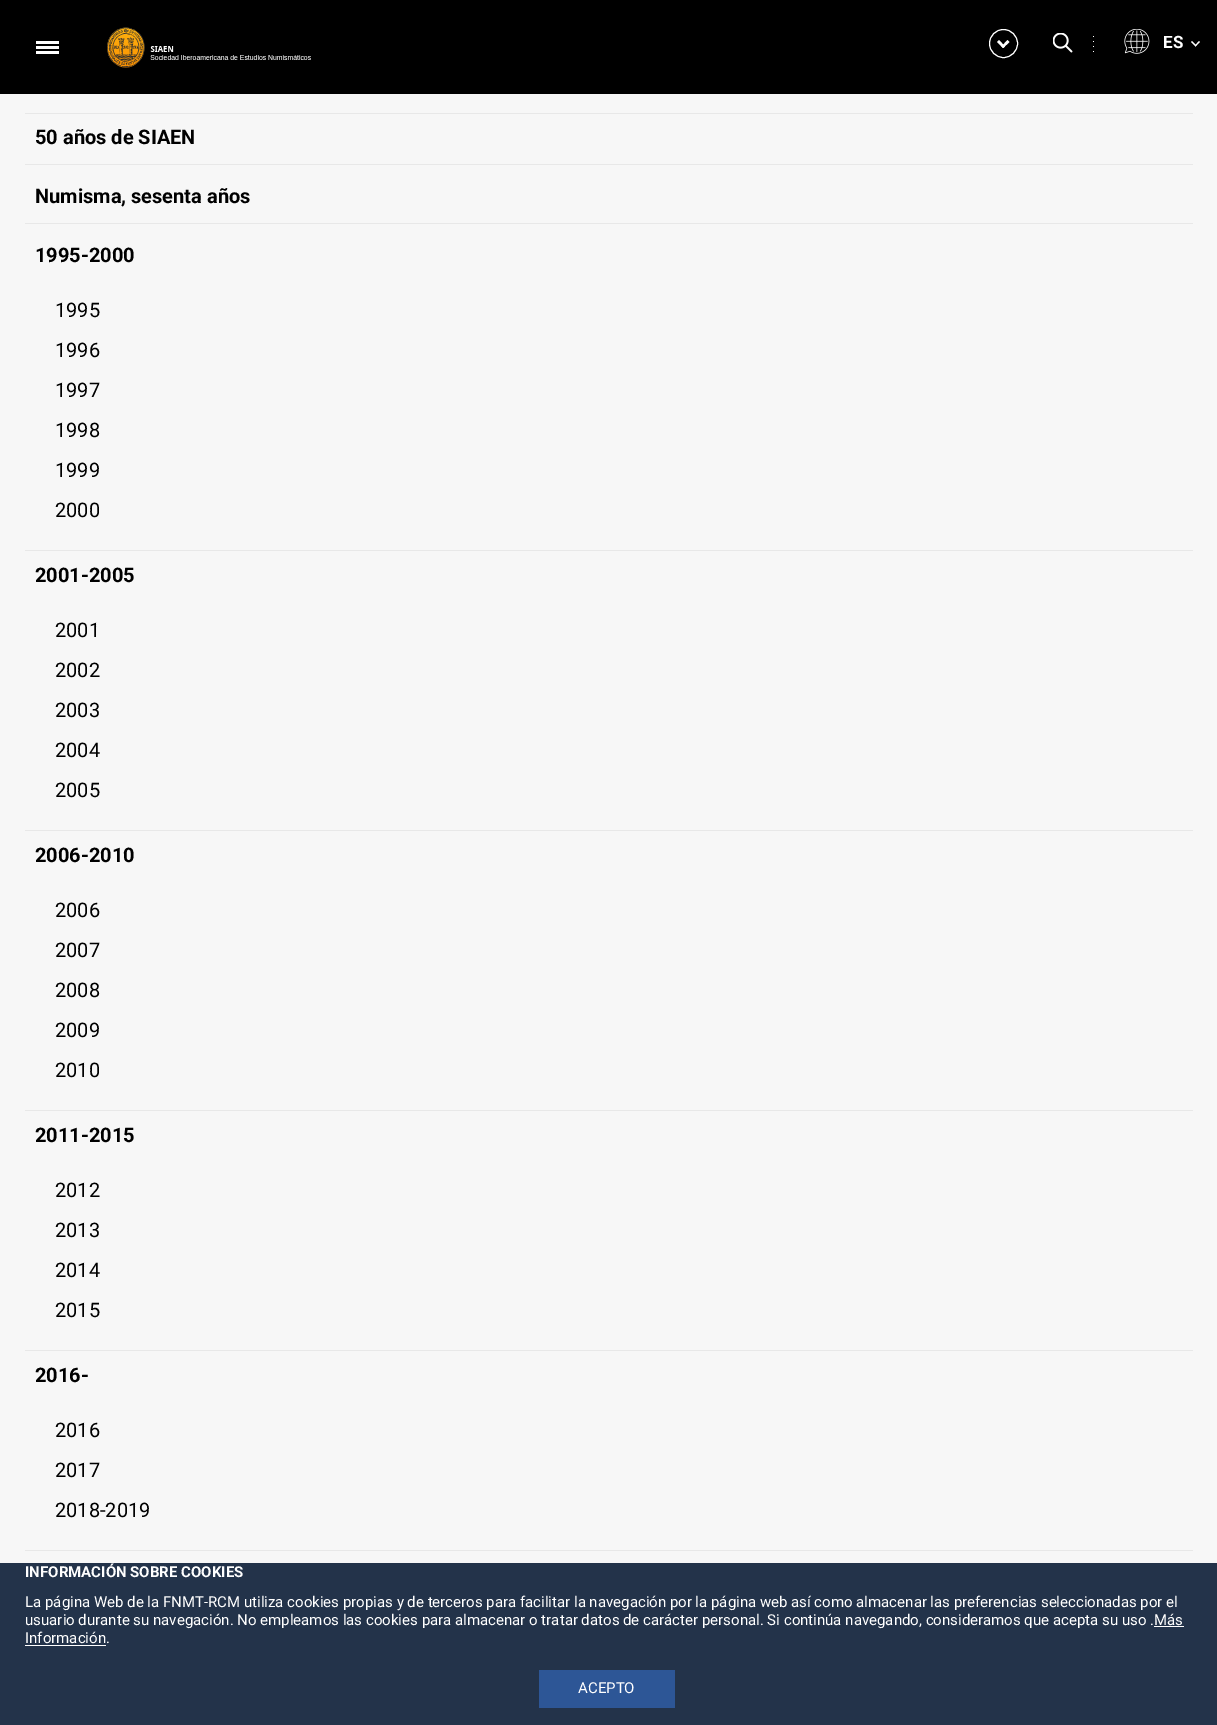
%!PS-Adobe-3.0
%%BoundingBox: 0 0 1217 1725
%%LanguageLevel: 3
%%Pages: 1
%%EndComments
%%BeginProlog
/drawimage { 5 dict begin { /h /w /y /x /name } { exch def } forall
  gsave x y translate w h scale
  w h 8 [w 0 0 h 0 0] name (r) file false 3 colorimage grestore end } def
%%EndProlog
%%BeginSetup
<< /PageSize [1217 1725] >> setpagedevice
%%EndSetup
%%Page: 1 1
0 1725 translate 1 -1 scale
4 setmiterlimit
0.969 setgray
0 0 1217 1725 rectfill
0 setgray
0 0 1217 94 rectfill
1 setgray
36 41 23 3 rectfill
36 46 23 3 rectfill
36 51 23 3 rectfill
(images/1.raw) 107 27 204 41 drawimage
newpath 1003.5 43.5 14 0 360 arc closepath stroke
newpath 1007.5 40 moveto 1009.5 42 lineto 1003 48 lineto 1001.5 46.5 lineto closepath fill
newpath 999 40 moveto 1005 46.5 lineto 1003 48 lineto 997 42 lineto closepath fill
(images/2.raw) 1053 33 20 20 drawimage
1093 36 1 1 rectfill
1093 41 1 1 rectfill
1093 46 1 1 rectfill
1093 51 1 1 rectfill
(images/3.raw) 1124 29 26 25 drawimage
newpath 1199 41 moveto 1200 42 lineto 1195.5 46.5 lineto 1195 45.5 lineto closepath fill
newpath 1192 41 moveto 1196.5 45.5 lineto 1195.5 46.5 lineto 1191 42 lineto closepath fill
0.91 setgray
25 113 1168 1 rectfill
25 164 1168 1 rectfill
25 223 1168 1 rectfill
25 550 1168 1 rectfill
25 830 1168 1 rectfill
25 1110 1168 1 rectfill
25 1350 1168 1 rectfill
25 1550 1168 1 rectfill
0.137 0.2 0.29 setrgbcolor
0 1563 1217 162 rectfill
1 setgray
1154 1626 30 1 rectfill
25 1645 81 1 rectfill
0.176 0.337 0.588 setrgbcolor
539 1670 136 38 rectfill
/Roboto-Bold [17 0 0 -17 0 0] selectfont
1 setgray
1163 48 moveto (ES) show
/Roboto-Bold [20 0 0 -20 0 0] selectfont
0 setgray
35 144 moveto (50 años de SIAEN) show
35 203 moveto (Numisma, sesenta años) show
35 262 moveto (1995-2000) show
/Roboto-Regular [20 0 0 -20 0 0] selectfont
55 317 moveto (1995) show
55 357 moveto (1996) show
55 397 moveto (1997) show
55 437 moveto (1998) show
55 477 moveto (1999) show
55 517 moveto (2000) show
/Roboto-Bold [20 0 0 -20 0 0] selectfont
35 582 moveto (2001-2005) show
/Roboto-Regular [20 0 0 -20 0 0] selectfont
55 637 moveto (2001) show
55 677 moveto (2002) show
55 717 moveto (2003) show
55 757 moveto (2004) show
55 797 moveto (2005) show
/Roboto-Bold [20 0 0 -20 0 0] selectfont
35 862 moveto (2006-2010) show
/Roboto-Regular [20 0 0 -20 0 0] selectfont
55 917 moveto (2006) show
55 957 moveto (2007) show
55 997 moveto (2008) show
55 1037 moveto (2009) show
55 1077 moveto (2010) show
/Roboto-Bold [20 0 0 -20 0 0] selectfont
35 1142 moveto (2011-2015) show
/Roboto-Regular [20 0 0 -20 0 0] selectfont
55 1197 moveto (2012) show
55 1237 moveto (2013) show
55 1277 moveto (2014) show
55 1317 moveto (2015) show
/Roboto-Bold [20 0 0 -20 0 0] selectfont
35 1382 moveto (2016-) show
/Roboto-Regular [20 0 0 -20 0 0] selectfont
55 1437 moveto (2016) show
55 1477 moveto (2017) show
55 1517 moveto (2018-2019) show
/Roboto-Bold [15 0 0 -15 0 0] selectfont
1 setgray
25 1577 moveto (INFORMACIÓN SOBRE COOKIES) show
/Roboto-Regular [15 0 0 -15 0 0] selectfont
25 1607 moveto (La página Web de la FNMT-RCM utiliza cookies propias y de terceros para facilitar la navegación por la página web así como almacenar las preferencias seleccionadas por el) show
25 1625 moveto (usuario durante su navegación. No empleamos las cookies para almacenar o tratar datos de carácter personal. Si continúa navegando, consideramos que acepta su uso .Más) show
25 1643 moveto (Información.) show
578 1693 moveto (ACEPTO) show
showpage
%%EOF
